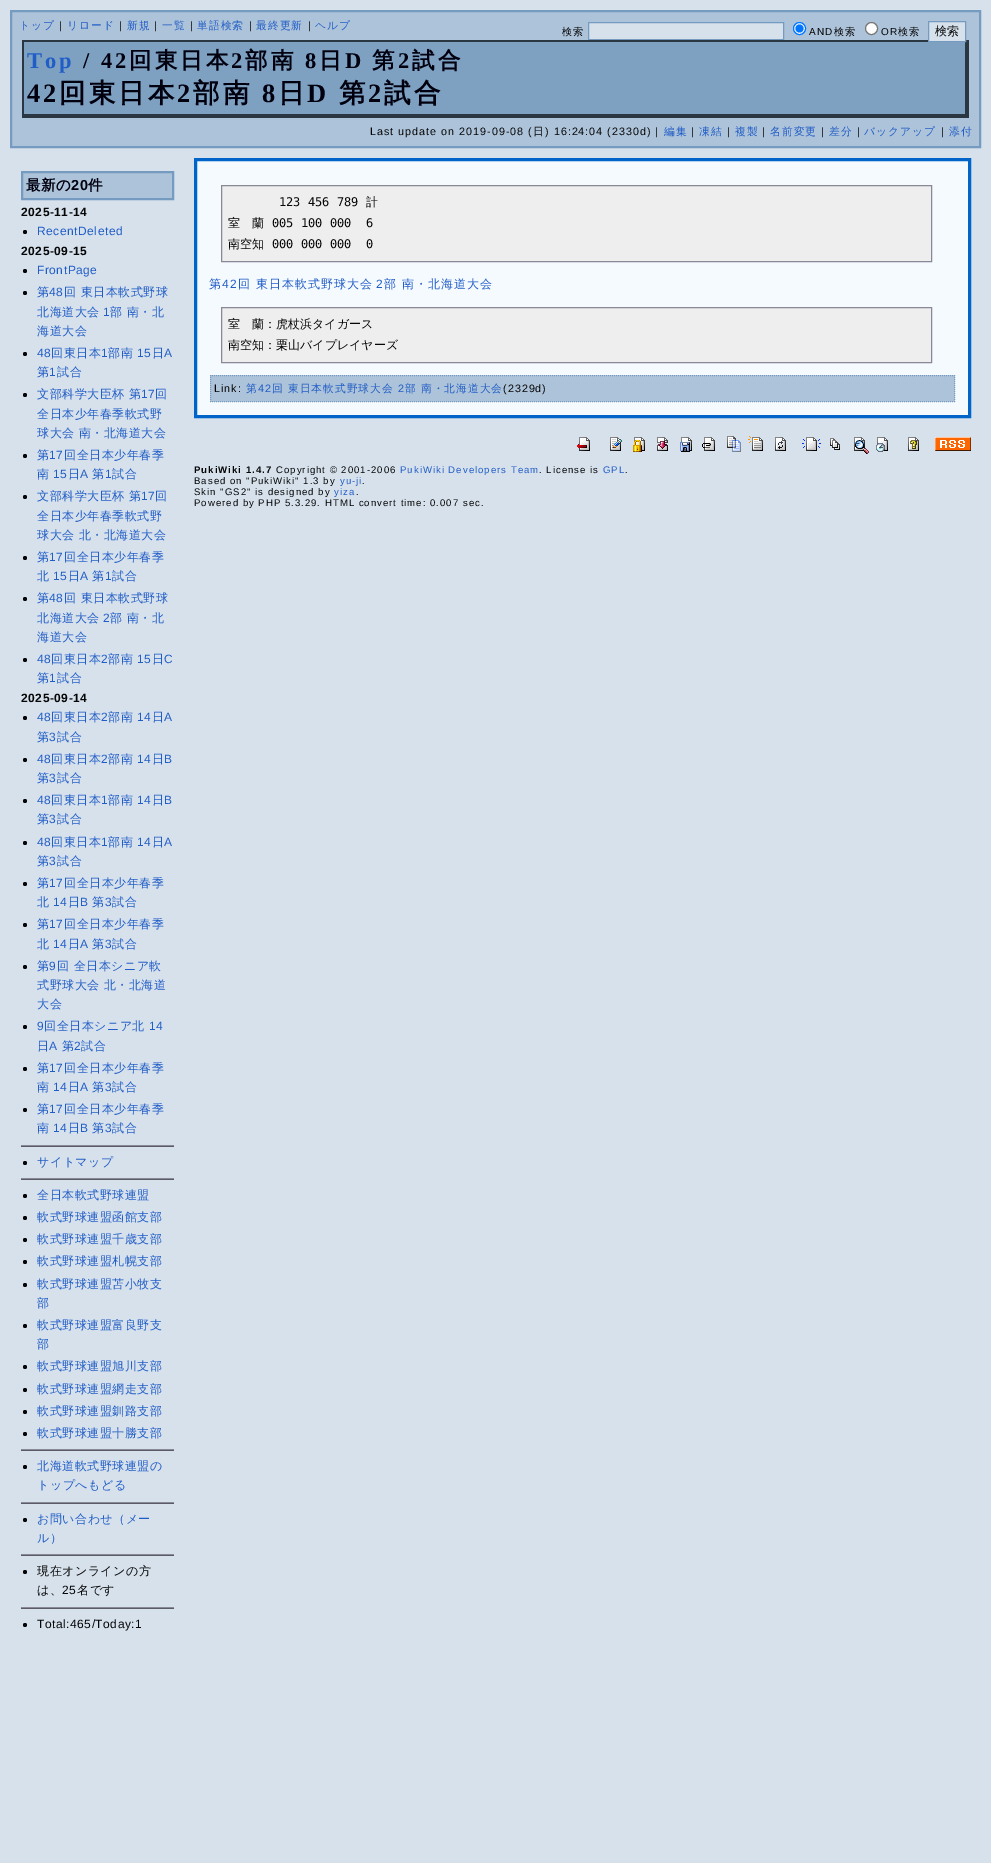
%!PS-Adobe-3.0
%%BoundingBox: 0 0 991 1863
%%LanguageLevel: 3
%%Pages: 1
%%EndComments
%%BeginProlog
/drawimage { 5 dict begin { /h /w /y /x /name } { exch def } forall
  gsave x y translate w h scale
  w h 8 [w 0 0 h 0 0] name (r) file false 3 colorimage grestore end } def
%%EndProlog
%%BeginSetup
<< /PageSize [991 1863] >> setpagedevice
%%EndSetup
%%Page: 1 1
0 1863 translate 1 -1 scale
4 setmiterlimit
0.839 0.882 0.925 setrgbcolor
0 0 991 1863 rectfill
0.678 0.765 0.851 setrgbcolor
newpath 11 11 moveto 980 11 lineto 980 147 lineto 11 147 lineto closepath gsave fill grestore
0.463 0.608 0.753 setrgbcolor
2 setlinewidth
stroke
0.839 0.882 0.925 setrgbcolor
newpath 588.5 22.5 moveto 783.5 22.5 lineto 783.5 39.5 lineto 588.5 39.5 lineto closepath gsave fill grestore
0.463 0.608 0.753 setrgbcolor
1 setlinewidth
stroke
1 setgray
newpath 799.5 28.5 6 0 360 arc closepath gsave fill grestore
0 0.459 1 setrgbcolor
stroke
newpath 799.5 28.5 4 0 360 arc closepath fill
1 setgray
newpath 871.5 28.5 6 0 360 arc closepath gsave fill grestore
0.463 setgray
stroke
0.169 0.212 0.263 setrgbcolor
965 40 4 78 rectfill
0.839 0.882 0.925 setrgbcolor
newpath 928.5 21.5 moveto 965.5 21.5 lineto 965.5 41.5 lineto 928.5 41.5 lineto closepath gsave fill grestore
0.463 0.608 0.753 setrgbcolor
stroke
0.494 0.631 0.761 setrgbcolor
24 42 941 72 rectfill
0.169 0.212 0.263 setrgbcolor
22 40 906 2 rectfill
22 114 947 4 rectfill
22 40 2 78 rectfill
0.678 0.765 0.851 setrgbcolor
newpath 22 172 moveto 173 172 lineto 173 199 lineto 22 199 lineto closepath gsave fill grestore
0.463 0.608 0.753 setrgbcolor
2 setlinewidth
stroke
0.024 setgray
newpath 25 232 2 0 360 arc closepath fill
newpath 25 271 2 0 360 arc closepath fill
newpath 25 293 2 0 360 arc closepath fill
newpath 25 354 2 0 360 arc closepath fill
newpath 25 395 2 0 360 arc closepath fill
newpath 25 456 2 0 360 arc closepath fill
newpath 25 497 2 0 360 arc closepath fill
newpath 25 558 2 0 360 arc closepath fill
newpath 25 599 2 0 360 arc closepath fill
newpath 25 660 2 0 360 arc closepath fill
newpath 25 718 2 0 360 arc closepath fill
newpath 25 760 2 0 360 arc closepath fill
newpath 25 801 2 0 360 arc closepath fill
newpath 25 843 2 0 360 arc closepath fill
newpath 25 884 2 0 360 arc closepath fill
newpath 25 925 2 0 360 arc closepath fill
newpath 25 967 2 0 360 arc closepath fill
newpath 25 1027 2 0 360 arc closepath fill
newpath 25 1069 2 0 360 arc closepath fill
newpath 25 1110 2 0 360 arc closepath fill
0.533 0.533 0.6 setrgbcolor
21 1145 153 1 rectfill
0.357 0.357 0.4 setrgbcolor
21 1146 153 1 rectfill
0.024 setgray
newpath 25 1163 2 0 360 arc closepath fill
0.533 0.533 0.6 setrgbcolor
21 1178 153 1 rectfill
0.357 0.357 0.4 setrgbcolor
21 1179 153 1 rectfill
0.024 setgray
newpath 25 1196 2 0 360 arc closepath fill
newpath 25 1218 2 0 360 arc closepath fill
newpath 25 1240 2 0 360 arc closepath fill
newpath 25 1262 2 0 360 arc closepath fill
newpath 25 1285 2 0 360 arc closepath fill
newpath 25 1326 2 0 360 arc closepath fill
newpath 25 1367 2 0 360 arc closepath fill
newpath 25 1390 2 0 360 arc closepath fill
newpath 25 1412 2 0 360 arc closepath fill
newpath 25 1434 2 0 360 arc closepath fill
0.533 0.533 0.6 setrgbcolor
21 1449 153 1 rectfill
0.357 0.357 0.4 setrgbcolor
21 1450 153 1 rectfill
0.024 setgray
newpath 25 1467 2 0 360 arc closepath fill
0.533 0.533 0.6 setrgbcolor
21 1502 153 1 rectfill
0.357 0.357 0.4 setrgbcolor
21 1503 153 1 rectfill
0.024 setgray
newpath 25 1520 2 0 360 arc closepath fill
0.533 0.533 0.6 setrgbcolor
21 1554 153 1 rectfill
0.357 0.357 0.4 setrgbcolor
21 1555 153 1 rectfill
0.024 setgray
newpath 25 1572 2 0 360 arc closepath fill
0.533 0.533 0.6 setrgbcolor
21 1607 153 1 rectfill
0.357 0.357 0.4 setrgbcolor
21 1608 153 1 rectfill
0.024 setgray
newpath 25 1625 2 0 360 arc closepath fill
0.961 0.98 1 setrgbcolor
newpath 195.5 159.5 moveto 969.5 159.5 lineto 969.5 416.5 lineto 195.5 416.5 lineto closepath gsave fill grestore
0 0.392 0.784 setrgbcolor
3 setlinewidth
stroke
0.933 setgray
newpath 221.5 185.5 moveto 931.5 185.5 lineto 931.5 261.5 lineto 221.5 261.5 lineto closepath gsave fill grestore
0.533 0.533 0.6 setrgbcolor
1 setlinewidth
stroke
0.933 setgray
newpath 221.5 307.5 moveto 931.5 307.5 lineto 931.5 362.5 lineto 221.5 362.5 lineto closepath gsave fill grestore
0.533 0.533 0.6 setrgbcolor
stroke
0.678 0.765 0.851 setrgbcolor
210 375 745 27 rectfill
0.463 0.608 0.753 setrgbcolor
[1 1] 0 setdash
newpath 210 375.5 moveto 955 375.5 lineto stroke
newpath 954.5 375 moveto 954.5 402 lineto stroke
newpath 210 401.5 moveto 955 401.5 lineto stroke
newpath 210.5 375 moveto 210.5 402 lineto stroke
(images/1.raw) 577 437 13 14 drawimage
(images/2.raw) 610 437 12 14 drawimage
(images/3.raw) 633 437 12 15 drawimage
(images/4.raw) 657 437 11 14 drawimage
(images/5.raw) 680 437 12 15 drawimage
(images/6.raw) 702 437 13 14 drawimage
(images/7.raw) 727 436 14 16 drawimage
(images/8.raw) 748 436 15 15 drawimage
(images/9.raw) 775 437 11 14 drawimage
(images/10.raw) 802 437 19 14 drawimage
(images/11.raw) 830 438 10 12 drawimage
(images/12.raw) 854 437 15 17 drawimage
(images/13.raw) 876 437 12 15 drawimage
(images/14.raw) 908 437 11 14 drawimage
(images/15.raw) 935 437 36 14 drawimage
/WenQuanYiZenHei-Medium [10.75 0 0 -10.75 0 0] selectfont
0.129 0.365 0.776 setrgbcolor
19 29 moveto 1 0 (トップ) ashow
/LiberationSans-Regular [10.75 0 0 -10.75 0 0] selectfont
0.024 setgray
59 29 moveto 1 0 (|) ashow
/WenQuanYiZenHei-Medium [10.75 0 0 -10.75 0 0] selectfont
0.129 0.365 0.776 setrgbcolor
67 29 moveto 1 0 (リロード) ashow
/LiberationSans-Regular [10.75 0 0 -10.75 0 0] selectfont
0.024 setgray
119 29 moveto 1 0 (|) ashow
/WenQuanYiZenHei-Medium [10.75 0 0 -10.75 0 0] selectfont
0.129 0.365 0.776 setrgbcolor
127 29 moveto 1 0 (新規) ashow
/LiberationSans-Regular [10.75 0 0 -10.75 0 0] selectfont
0.024 setgray
154 29 moveto 1 0 (|) ashow
/WenQuanYiZenHei-Medium [10.75 0 0 -10.75 0 0] selectfont
0.129 0.365 0.776 setrgbcolor
162 29 moveto 1 0 (一覧) ashow
/LiberationSans-Regular [10.75 0 0 -10.75 0 0] selectfont
0.024 setgray
190 29 moveto 1 0 (|) ashow
/WenQuanYiZenHei-Medium [10.75 0 0 -10.75 0 0] selectfont
0.129 0.365 0.776 setrgbcolor
197 29 moveto 1 0 (単語検索) ashow
/LiberationSans-Regular [10.75 0 0 -10.75 0 0] selectfont
0.024 setgray
249 29 moveto 1 0 (|) ashow
/WenQuanYiZenHei-Medium [10.75 0 0 -10.75 0 0] selectfont
0.129 0.365 0.776 setrgbcolor
256 29 moveto 1 0 (最終更新) ashow
/LiberationSans-Regular [10.75 0 0 -10.75 0 0] selectfont
0.024 setgray
308 29 moveto 1 0 (|) ashow
/WenQuanYiZenHei-Medium [10.75 0 0 -10.75 0 0] selectfont
0.129 0.365 0.776 setrgbcolor
315 29 moveto 1 0 (ヘルプ) ashow
/WenQuanYiZenHei-Medium [10 0 0 -10 0 0] selectfont
0.024 setgray
562 35 moveto 1 0 (検索) ashow
/LiberationSans-Regular [10 0 0 -10 0 0] selectfont
809 35 moveto 1 0 (AND) ashow
/WenQuanYiZenHei-Medium [10 0 0 -10 0 0] selectfont
834 35 moveto 1 0 (検索) ashow
/LiberationSans-Regular [10 0 0 -10 0 0] selectfont
881 35 moveto 1 0 (OR) ashow
/WenQuanYiZenHei-Medium [10 0 0 -10 0 0] selectfont
898 35 moveto 1 0 (検索) ashow
/WenQuanYiZenHei-Medium [12 0 0 -12 0 0] selectfont
935 35 moveto (検索) show
/LiberationSerif-Bold [22.5 0 0 -22.5 0 0] selectfont
0.129 0.365 0.776 setrgbcolor
27 68 moveto 3 0 (Top) ashow
0 0 0.059 setrgbcolor
83 68 moveto 3 0 (/ 42) ashow
/WenQuanYiZenHei-Bold [22.5 0 0 -22.5 0 0] selectfont
129 68 moveto 3 0 (回東日本) ashow
/LiberationSerif-Bold [22.5 0 0 -22.5 0 0] selectfont
231 68 moveto 3 0 (2) ashow
/WenQuanYiZenHei-Bold [22.5 0 0 -22.5 0 0] selectfont
245 68 moveto 3 0 (部南) ashow
/LiberationSerif-Bold [22.5 0 0 -22.5 0 0] selectfont
305 68 moveto 3 0 (8) ashow
/WenQuanYiZenHei-Bold [22.5 0 0 -22.5 0 0] selectfont
319 68 moveto 3 0 (日) ashow
/LiberationSerif-Bold [22.5 0 0 -22.5 0 0] selectfont
345 68 moveto 3 0 (D) ashow
/WenQuanYiZenHei-Bold [22.5 0 0 -22.5 0 0] selectfont
372 68 moveto 3 0 (第) ashow
/LiberationSerif-Bold [22.5 0 0 -22.5 0 0] selectfont
398 68 moveto 3 0 (2) ashow
/WenQuanYiZenHei-Bold [22.5 0 0 -22.5 0 0] selectfont
412 68 moveto 3 0 (試合) ashow
/LiberationSerif-Bold [26.5 0 0 -26.5 0 0] selectfont
27 102 moveto 3 0 (42) ashow
/WenQuanYiZenHei-Bold [26.5 0 0 -26.5 0 0] selectfont
59 102 moveto 3 0 (回東日本) ashow
/LiberationSerif-Bold [26.5 0 0 -26.5 0 0] selectfont
177 102 moveto 3 0 (2) ashow
/WenQuanYiZenHei-Bold [26.5 0 0 -26.5 0 0] selectfont
193 102 moveto 3 0 (部南) ashow
/LiberationSerif-Bold [26.5 0 0 -26.5 0 0] selectfont
262 102 moveto 3 0 (8) ashow
/WenQuanYiZenHei-Bold [26.5 0 0 -26.5 0 0] selectfont
278 102 moveto 3 0 (日) ashow
/LiberationSerif-Bold [26.5 0 0 -26.5 0 0] selectfont
307 102 moveto 3 0 (D) ashow
/WenQuanYiZenHei-Bold [26.5 0 0 -26.5 0 0] selectfont
339 102 moveto 3 0 (第) ashow
/LiberationSerif-Bold [26.5 0 0 -26.5 0 0] selectfont
368 102 moveto 3 0 (2) ashow
/WenQuanYiZenHei-Bold [26.5 0 0 -26.5 0 0] selectfont
384 102 moveto 3 0 (試合) ashow
/LiberationSans-Regular [10.75 0 0 -10.75 0 0] selectfont
0.024 setgray
370 135 moveto 1 0 (Last update on 2019-09-08 \() ashow
/WenQuanYiZenHei-Medium [10.75 0 0 -10.75 0 0] selectfont
533 135 moveto 1 0 (日) ashow
/LiberationSans-Regular [10.75 0 0 -10.75 0 0] selectfont
545 135 moveto 1 0 (\) 16:24:04 \(2330d\) |) ashow
/WenQuanYiZenHei-Medium [10.75 0 0 -10.75 0 0] selectfont
0.129 0.365 0.776 setrgbcolor
664 135 moveto 1 0 (編集) ashow
/LiberationSans-Regular [10.75 0 0 -10.75 0 0] selectfont
0.024 setgray
691 135 moveto 1 0 (|) ashow
/WenQuanYiZenHei-Medium [10.75 0 0 -10.75 0 0] selectfont
0.129 0.365 0.776 setrgbcolor
699 135 moveto 1 0 (凍結) ashow
/LiberationSans-Regular [10.75 0 0 -10.75 0 0] selectfont
0.024 setgray
727 135 moveto 1 0 (|) ashow
/WenQuanYiZenHei-Medium [10.75 0 0 -10.75 0 0] selectfont
0.129 0.365 0.776 setrgbcolor
735 135 moveto 1 0 (複製) ashow
/LiberationSans-Regular [10.75 0 0 -10.75 0 0] selectfont
0.024 setgray
762 135 moveto 1 0 (|) ashow
/WenQuanYiZenHei-Medium [10.75 0 0 -10.75 0 0] selectfont
0.129 0.365 0.776 setrgbcolor
770 135 moveto 1 0 (名前変更) ashow
/LiberationSans-Regular [10.75 0 0 -10.75 0 0] selectfont
0.024 setgray
821 135 moveto 1 0 (|) ashow
/WenQuanYiZenHei-Medium [10.75 0 0 -10.75 0 0] selectfont
0.129 0.365 0.776 setrgbcolor
829 135 moveto 1 0 (差分) ashow
/LiberationSans-Regular [10.75 0 0 -10.75 0 0] selectfont
0.024 setgray
857 135 moveto 1 0 (|) ashow
/WenQuanYiZenHei-Medium [10.75 0 0 -10.75 0 0] selectfont
0.129 0.365 0.776 setrgbcolor
864 135 moveto 1 0 (バックアップ) ashow
/LiberationSans-Regular [10.75 0 0 -10.75 0 0] selectfont
0.024 setgray
941 135 moveto 1 0 (|) ashow
/WenQuanYiZenHei-Medium [10.75 0 0 -10.75 0 0] selectfont
0.129 0.365 0.776 setrgbcolor
949 135 moveto 1 0 (添付) ashow
/WenQuanYiZenHei-Bold [14.5 0 0 -14.5 0 0] selectfont
0 0 0.059 setrgbcolor
26 190 moveto 0.5 0 (最新の) ashow
/LiberationSans-Bold [14.5 0 0 -14.5 0 0] selectfont
71 190 moveto 0.5 0 (20) ashow
/WenQuanYiZenHei-Bold [14.5 0 0 -14.5 0 0] selectfont
88 190 moveto 0.5 0 (件) ashow
/LiberationSans-Bold [12 0 0 -12 0 0] selectfont
0.024 setgray
21 216 moveto 0.5 0 (2025-11-14) ashow
/LiberationSans-Regular [12 0 0 -12 0 0] selectfont
0.129 0.365 0.776 setrgbcolor
37 235 moveto 0.5 0 (RecentDeleted) ashow
/LiberationSans-Bold [12 0 0 -12 0 0] selectfont
0.024 setgray
21 255 moveto 0.5 0 (2025-09-15) ashow
/LiberationSans-Regular [12 0 0 -12 0 0] selectfont
0.129 0.365 0.776 setrgbcolor
37 274 moveto 0.5 0 (FrontPage) ashow
/WenQuanYiZenHei-Medium [12 0 0 -12 0 0] selectfont
37 296 moveto 0.5 0 (第) ashow
/LiberationSans-Regular [12 0 0 -12 0 0] selectfont
49 296 moveto 0.5 0 (48) ashow
/WenQuanYiZenHei-Medium [12 0 0 -12 0 0] selectfont
64 296 moveto 0.5 0 (回 東日本軟式野球) ashow
37 316 moveto 0.5 0 (北海道大会) ashow
/LiberationSans-Regular [12 0 0 -12 0 0] selectfont
103 316 moveto 0.5 0 (1) ashow
/WenQuanYiZenHei-Medium [12 0 0 -12 0 0] selectfont
110 316 moveto 0.5 0 (部 南・北) ashow
37 335 moveto 0.5 0 (海道大会) ashow
/LiberationSans-Regular [12 0 0 -12 0 0] selectfont
37 357 moveto 0.5 0 (48) ashow
/WenQuanYiZenHei-Medium [12 0 0 -12 0 0] selectfont
51 357 moveto 0.5 0 (回東日本) ashow
/LiberationSans-Regular [12 0 0 -12 0 0] selectfont
101 357 moveto 0.5 0 (1) ashow
/WenQuanYiZenHei-Medium [12 0 0 -12 0 0] selectfont
108 357 moveto 0.5 0 (部南) ashow
/LiberationSans-Regular [12 0 0 -12 0 0] selectfont
137 357 moveto 0.5 0 (15) ashow
/WenQuanYiZenHei-Medium [12 0 0 -12 0 0] selectfont
152 357 moveto 0.5 0 (日) ashow
/LiberationSans-Regular [12 0 0 -12 0 0] selectfont
164 357 moveto 0.5 0 (A) ashow
/WenQuanYiZenHei-Medium [12 0 0 -12 0 0] selectfont
37 376 moveto 0.5 0 (第) ashow
/LiberationSans-Regular [12 0 0 -12 0 0] selectfont
49 376 moveto 0.5 0 (1) ashow
/WenQuanYiZenHei-Medium [12 0 0 -12 0 0] selectfont
57 376 moveto 0.5 0 (試合) ashow
37 398 moveto 0.5 0 (文部科学大臣杯 第) ashow
/LiberationSans-Regular [12 0 0 -12 0 0] selectfont
141 398 moveto 0.5 0 (17) ashow
/WenQuanYiZenHei-Medium [12 0 0 -12 0 0] selectfont
155 398 moveto 0.5 0 (回) ashow
37 418 moveto 0.5 0 (全日本少年春季軟式野) ashow
37 437 moveto 0.5 0 (球大会 南・北海道大会) ashow
37 459 moveto 0.5 0 (第) ashow
/LiberationSans-Regular [12 0 0 -12 0 0] selectfont
49 459 moveto 0.5 0 (17) ashow
/WenQuanYiZenHei-Medium [12 0 0 -12 0 0] selectfont
64 459 moveto 0.5 0 (回全日本少年春季) ashow
37 478 moveto 0.5 0 (南) ashow
/LiberationSans-Regular [12 0 0 -12 0 0] selectfont
53 478 moveto 0.5 0 (15) ashow
/WenQuanYiZenHei-Medium [12 0 0 -12 0 0] selectfont
68 478 moveto 0.5 0 (日) ashow
/LiberationSans-Regular [12 0 0 -12 0 0] selectfont
80 478 moveto 0.5 0 (A) ashow
/WenQuanYiZenHei-Medium [12 0 0 -12 0 0] selectfont
92 478 moveto 0.5 0 (第) ashow
/LiberationSans-Regular [12 0 0 -12 0 0] selectfont
105 478 moveto 0.5 0 (1) ashow
/WenQuanYiZenHei-Medium [12 0 0 -12 0 0] selectfont
112 478 moveto 0.5 0 (試合) ashow
37 500 moveto 0.5 0 (文部科学大臣杯 第) ashow
/LiberationSans-Regular [12 0 0 -12 0 0] selectfont
141 500 moveto 0.5 0 (17) ashow
/WenQuanYiZenHei-Medium [12 0 0 -12 0 0] selectfont
155 500 moveto 0.5 0 (回) ashow
37 520 moveto 0.5 0 (全日本少年春季軟式野) ashow
37 539 moveto 0.5 0 (球大会 北・北海道大会) ashow
37 561 moveto 0.5 0 (第) ashow
/LiberationSans-Regular [12 0 0 -12 0 0] selectfont
49 561 moveto 0.5 0 (17) ashow
/WenQuanYiZenHei-Medium [12 0 0 -12 0 0] selectfont
64 561 moveto 0.5 0 (回全日本少年春季) ashow
37 580 moveto 0.5 0 (北) ashow
/LiberationSans-Regular [12 0 0 -12 0 0] selectfont
53 580 moveto 0.5 0 (15) ashow
/WenQuanYiZenHei-Medium [12 0 0 -12 0 0] selectfont
68 580 moveto 0.5 0 (日) ashow
/LiberationSans-Regular [12 0 0 -12 0 0] selectfont
80 580 moveto 0.5 0 (A) ashow
/WenQuanYiZenHei-Medium [12 0 0 -12 0 0] selectfont
92 580 moveto 0.5 0 (第) ashow
/LiberationSans-Regular [12 0 0 -12 0 0] selectfont
105 580 moveto 0.5 0 (1) ashow
/WenQuanYiZenHei-Medium [12 0 0 -12 0 0] selectfont
112 580 moveto 0.5 0 (試合) ashow
37 602 moveto 0.5 0 (第) ashow
/LiberationSans-Regular [12 0 0 -12 0 0] selectfont
49 602 moveto 0.5 0 (48) ashow
/WenQuanYiZenHei-Medium [12 0 0 -12 0 0] selectfont
64 602 moveto 0.5 0 (回 東日本軟式野球) ashow
37 622 moveto 0.5 0 (北海道大会) ashow
/LiberationSans-Regular [12 0 0 -12 0 0] selectfont
103 622 moveto 0.5 0 (2) ashow
/WenQuanYiZenHei-Medium [12 0 0 -12 0 0] selectfont
110 622 moveto 0.5 0 (部 南・北) ashow
37 641 moveto 0.5 0 (海道大会) ashow
/LiberationSans-Regular [12 0 0 -12 0 0] selectfont
37 663 moveto 0.5 0 (48) ashow
/WenQuanYiZenHei-Medium [12 0 0 -12 0 0] selectfont
51 663 moveto 0.5 0 (回東日本) ashow
/LiberationSans-Regular [12 0 0 -12 0 0] selectfont
101 663 moveto 0.5 0 (2) ashow
/WenQuanYiZenHei-Medium [12 0 0 -12 0 0] selectfont
108 663 moveto 0.5 0 (部南) ashow
/LiberationSans-Regular [12 0 0 -12 0 0] selectfont
137 663 moveto 0.5 0 (15) ashow
/WenQuanYiZenHei-Medium [12 0 0 -12 0 0] selectfont
152 663 moveto 0.5 0 (日) ashow
/LiberationSans-Regular [12 0 0 -12 0 0] selectfont
164 663 moveto 0.5 0 (C) ashow
/WenQuanYiZenHei-Medium [12 0 0 -12 0 0] selectfont
37 682 moveto 0.5 0 (第) ashow
/LiberationSans-Regular [12 0 0 -12 0 0] selectfont
49 682 moveto 0.5 0 (1) ashow
/WenQuanYiZenHei-Medium [12 0 0 -12 0 0] selectfont
57 682 moveto 0.5 0 (試合) ashow
/LiberationSans-Bold [12 0 0 -12 0 0] selectfont
0.024 setgray
21 702 moveto 0.5 0 (2025-09-14) ashow
/LiberationSans-Regular [12 0 0 -12 0 0] selectfont
0.129 0.365 0.776 setrgbcolor
37 721 moveto 0.5 0 (48) ashow
/WenQuanYiZenHei-Medium [12 0 0 -12 0 0] selectfont
51 721 moveto 0.5 0 (回東日本) ashow
/LiberationSans-Regular [12 0 0 -12 0 0] selectfont
101 721 moveto 0.5 0 (2) ashow
/WenQuanYiZenHei-Medium [12 0 0 -12 0 0] selectfont
108 721 moveto 0.5 0 (部南) ashow
/LiberationSans-Regular [12 0 0 -12 0 0] selectfont
137 721 moveto 0.5 0 (14) ashow
/WenQuanYiZenHei-Medium [12 0 0 -12 0 0] selectfont
152 721 moveto 0.5 0 (日) ashow
/LiberationSans-Regular [12 0 0 -12 0 0] selectfont
164 721 moveto 0.5 0 (A) ashow
/WenQuanYiZenHei-Medium [12 0 0 -12 0 0] selectfont
37 741 moveto 0.5 0 (第) ashow
/LiberationSans-Regular [12 0 0 -12 0 0] selectfont
49 741 moveto 0.5 0 (3) ashow
/WenQuanYiZenHei-Medium [12 0 0 -12 0 0] selectfont
57 741 moveto 0.5 0 (試合) ashow
/LiberationSans-Regular [12 0 0 -12 0 0] selectfont
37 763 moveto 0.5 0 (48) ashow
/WenQuanYiZenHei-Medium [12 0 0 -12 0 0] selectfont
51 763 moveto 0.5 0 (回東日本) ashow
/LiberationSans-Regular [12 0 0 -12 0 0] selectfont
101 763 moveto 0.5 0 (2) ashow
/WenQuanYiZenHei-Medium [12 0 0 -12 0 0] selectfont
108 763 moveto 0.5 0 (部南) ashow
/LiberationSans-Regular [12 0 0 -12 0 0] selectfont
137 763 moveto 0.5 0 (14) ashow
/WenQuanYiZenHei-Medium [12 0 0 -12 0 0] selectfont
152 763 moveto 0.5 0 (日) ashow
/LiberationSans-Regular [12 0 0 -12 0 0] selectfont
164 763 moveto 0.5 0 (B) ashow
/WenQuanYiZenHei-Medium [12 0 0 -12 0 0] selectfont
37 782 moveto 0.5 0 (第) ashow
/LiberationSans-Regular [12 0 0 -12 0 0] selectfont
49 782 moveto 0.5 0 (3) ashow
/WenQuanYiZenHei-Medium [12 0 0 -12 0 0] selectfont
57 782 moveto 0.5 0 (試合) ashow
/LiberationSans-Regular [12 0 0 -12 0 0] selectfont
37 804 moveto 0.5 0 (48) ashow
/WenQuanYiZenHei-Medium [12 0 0 -12 0 0] selectfont
51 804 moveto 0.5 0 (回東日本) ashow
/LiberationSans-Regular [12 0 0 -12 0 0] selectfont
101 804 moveto 0.5 0 (1) ashow
/WenQuanYiZenHei-Medium [12 0 0 -12 0 0] selectfont
108 804 moveto 0.5 0 (部南) ashow
/LiberationSans-Regular [12 0 0 -12 0 0] selectfont
137 804 moveto 0.5 0 (14) ashow
/WenQuanYiZenHei-Medium [12 0 0 -12 0 0] selectfont
152 804 moveto 0.5 0 (日) ashow
/LiberationSans-Regular [12 0 0 -12 0 0] selectfont
164 804 moveto 0.5 0 (B) ashow
/WenQuanYiZenHei-Medium [12 0 0 -12 0 0] selectfont
37 823 moveto 0.5 0 (第) ashow
/LiberationSans-Regular [12 0 0 -12 0 0] selectfont
49 823 moveto 0.5 0 (3) ashow
/WenQuanYiZenHei-Medium [12 0 0 -12 0 0] selectfont
57 823 moveto 0.5 0 (試合) ashow
/LiberationSans-Regular [12 0 0 -12 0 0] selectfont
37 846 moveto 0.5 0 (48) ashow
/WenQuanYiZenHei-Medium [12 0 0 -12 0 0] selectfont
51 846 moveto 0.5 0 (回東日本) ashow
/LiberationSans-Regular [12 0 0 -12 0 0] selectfont
101 846 moveto 0.5 0 (1) ashow
/WenQuanYiZenHei-Medium [12 0 0 -12 0 0] selectfont
108 846 moveto 0.5 0 (部南) ashow
/LiberationSans-Regular [12 0 0 -12 0 0] selectfont
137 846 moveto 0.5 0 (14) ashow
/WenQuanYiZenHei-Medium [12 0 0 -12 0 0] selectfont
152 846 moveto 0.5 0 (日) ashow
/LiberationSans-Regular [12 0 0 -12 0 0] selectfont
164 846 moveto 0.5 0 (A) ashow
/WenQuanYiZenHei-Medium [12 0 0 -12 0 0] selectfont
37 865 moveto 0.5 0 (第) ashow
/LiberationSans-Regular [12 0 0 -12 0 0] selectfont
49 865 moveto 0.5 0 (3) ashow
/WenQuanYiZenHei-Medium [12 0 0 -12 0 0] selectfont
57 865 moveto 0.5 0 (試合) ashow
37 887 moveto 0.5 0 (第) ashow
/LiberationSans-Regular [12 0 0 -12 0 0] selectfont
49 887 moveto 0.5 0 (17) ashow
/WenQuanYiZenHei-Medium [12 0 0 -12 0 0] selectfont
64 887 moveto 0.5 0 (回全日本少年春季) ashow
37 906 moveto 0.5 0 (北) ashow
/LiberationSans-Regular [12 0 0 -12 0 0] selectfont
53 906 moveto 0.5 0 (14) ashow
/WenQuanYiZenHei-Medium [12 0 0 -12 0 0] selectfont
68 906 moveto 0.5 0 (日) ashow
/LiberationSans-Regular [12 0 0 -12 0 0] selectfont
80 906 moveto 0.5 0 (B) ashow
/WenQuanYiZenHei-Medium [12 0 0 -12 0 0] selectfont
92 906 moveto 0.5 0 (第) ashow
/LiberationSans-Regular [12 0 0 -12 0 0] selectfont
105 906 moveto 0.5 0 (3) ashow
/WenQuanYiZenHei-Medium [12 0 0 -12 0 0] selectfont
112 906 moveto 0.5 0 (試合) ashow
37 928 moveto 0.5 0 (第) ashow
/LiberationSans-Regular [12 0 0 -12 0 0] selectfont
49 928 moveto 0.5 0 (17) ashow
/WenQuanYiZenHei-Medium [12 0 0 -12 0 0] selectfont
64 928 moveto 0.5 0 (回全日本少年春季) ashow
37 948 moveto 0.5 0 (北) ashow
/LiberationSans-Regular [12 0 0 -12 0 0] selectfont
53 948 moveto 0.5 0 (14) ashow
/WenQuanYiZenHei-Medium [12 0 0 -12 0 0] selectfont
68 948 moveto 0.5 0 (日) ashow
/LiberationSans-Regular [12 0 0 -12 0 0] selectfont
80 948 moveto 0.5 0 (A) ashow
/WenQuanYiZenHei-Medium [12 0 0 -12 0 0] selectfont
92 948 moveto 0.5 0 (第) ashow
/LiberationSans-Regular [12 0 0 -12 0 0] selectfont
105 948 moveto 0.5 0 (3) ashow
/WenQuanYiZenHei-Medium [12 0 0 -12 0 0] selectfont
112 948 moveto 0.5 0 (試合) ashow
37 970 moveto 0.5 0 (第) ashow
/LiberationSans-Regular [12 0 0 -12 0 0] selectfont
49 970 moveto 0.5 0 (9) ashow
/WenQuanYiZenHei-Medium [12 0 0 -12 0 0] selectfont
57 970 moveto 0.5 0 (回 全日本シニア軟) ashow
37 989 moveto 0.5 0 (式野球大会 北・北海道) ashow
37 1008 moveto 0.5 0 (大会) ashow
/LiberationSans-Regular [12 0 0 -12 0 0] selectfont
37 1030 moveto 0.5 0 (9) ashow
/WenQuanYiZenHei-Medium [12 0 0 -12 0 0] selectfont
44 1030 moveto 0.5 0 (回全日本シニア北) ashow
/LiberationSans-Regular [12 0 0 -12 0 0] selectfont
149 1030 moveto 0.5 0 (14) ashow
/WenQuanYiZenHei-Medium [12 0 0 -12 0 0] selectfont
37 1050 moveto 0.5 0 (日) ashow
/LiberationSans-Regular [12 0 0 -12 0 0] selectfont
49 1050 moveto 0.5 0 (A) ashow
/WenQuanYiZenHei-Medium [12 0 0 -12 0 0] selectfont
62 1050 moveto 0.5 0 (第) ashow
/LiberationSans-Regular [12 0 0 -12 0 0] selectfont
74 1050 moveto 0.5 0 (2) ashow
/WenQuanYiZenHei-Medium [12 0 0 -12 0 0] selectfont
81 1050 moveto 0.5 0 (試合) ashow
37 1072 moveto 0.5 0 (第) ashow
/LiberationSans-Regular [12 0 0 -12 0 0] selectfont
49 1072 moveto 0.5 0 (17) ashow
/WenQuanYiZenHei-Medium [12 0 0 -12 0 0] selectfont
64 1072 moveto 0.5 0 (回全日本少年春季) ashow
37 1091 moveto 0.5 0 (南) ashow
/LiberationSans-Regular [12 0 0 -12 0 0] selectfont
53 1091 moveto 0.5 0 (14) ashow
/WenQuanYiZenHei-Medium [12 0 0 -12 0 0] selectfont
68 1091 moveto 0.5 0 (日) ashow
/LiberationSans-Regular [12 0 0 -12 0 0] selectfont
80 1091 moveto 0.5 0 (A) ashow
/WenQuanYiZenHei-Medium [12 0 0 -12 0 0] selectfont
92 1091 moveto 0.5 0 (第) ashow
/LiberationSans-Regular [12 0 0 -12 0 0] selectfont
105 1091 moveto 0.5 0 (3) ashow
/WenQuanYiZenHei-Medium [12 0 0 -12 0 0] selectfont
112 1091 moveto 0.5 0 (試合) ashow
37 1113 moveto 0.5 0 (第) ashow
/LiberationSans-Regular [12 0 0 -12 0 0] selectfont
49 1113 moveto 0.5 0 (17) ashow
/WenQuanYiZenHei-Medium [12 0 0 -12 0 0] selectfont
64 1113 moveto 0.5 0 (回全日本少年春季) ashow
37 1132 moveto 0.5 0 (南) ashow
/LiberationSans-Regular [12 0 0 -12 0 0] selectfont
53 1132 moveto 0.5 0 (14) ashow
/WenQuanYiZenHei-Medium [12 0 0 -12 0 0] selectfont
68 1132 moveto 0.5 0 (日) ashow
/LiberationSans-Regular [12 0 0 -12 0 0] selectfont
80 1132 moveto 0.5 0 (B) ashow
/WenQuanYiZenHei-Medium [12 0 0 -12 0 0] selectfont
92 1132 moveto 0.5 0 (第) ashow
/LiberationSans-Regular [12 0 0 -12 0 0] selectfont
105 1132 moveto 0.5 0 (3) ashow
/WenQuanYiZenHei-Medium [12 0 0 -12 0 0] selectfont
112 1132 moveto 0.5 0 (試合) ashow
37 1166 moveto 0.5 0 (サイトマップ) ashow
37 1199 moveto 0.5 0 (全日本軟式野球連盟) ashow
37 1221 moveto 0.5 0 (軟式野球連盟函館支部) ashow
37 1243 moveto 0.5 0 (軟式野球連盟千歳支部) ashow
37 1265 moveto 0.5 0 (軟式野球連盟札幌支部) ashow
37 1288 moveto 0.5 0 (軟式野球連盟苫小牧支) ashow
37 1307 moveto 0.5 0 (部) ashow
37 1329 moveto 0.5 0 (軟式野球連盟富良野支) ashow
37 1348 moveto 0.5 0 (部) ashow
37 1370 moveto 0.5 0 (軟式野球連盟旭川支部) ashow
37 1393 moveto 0.5 0 (軟式野球連盟網走支部) ashow
37 1415 moveto 0.5 0 (軟式野球連盟釧路支部) ashow
37 1437 moveto 0.5 0 (軟式野球連盟十勝支部) ashow
37 1470 moveto 0.5 0 (北海道軟式野球連盟の) ashow
37 1489 moveto 0.5 0 (トップへもどる) ashow
37 1523 moveto 0.5 0 (お問い合わせ（メー) ashow
37 1542 moveto 0.5 0 (ル）) ashow
0.024 setgray
37 1575 moveto 0.5 0 (現在オンラインの方) ashow
37 1594 moveto 0.5 0 (は、) ashow
/LiberationSans-Regular [12 0 0 -12 0 0] selectfont
62 1594 moveto 0.5 0 (25) ashow
/WenQuanYiZenHei-Medium [12 0 0 -12 0 0] selectfont
77 1594 moveto 0.5 0 (名です) ashow
/LiberationSans-Regular [12 0 0 -12 0 0] selectfont
37 1628 moveto 0.5 0 (Total:465/Today:1) ashow
/DejaVuSansMono-Regular [12 0 0 -12 0 0] selectfont
279 206 moveto (123 456 789) show
/WenQuanYiZenHei-Medium [12 0 0 -12 0 0] selectfont
366 206 moveto (計) show
228 227 moveto (室　蘭) show
/DejaVuSansMono-Regular [12 0 0 -12 0 0] selectfont
272 227 moveto (005 100 000  6) show
/WenQuanYiZenHei-Medium [12 0 0 -12 0 0] selectfont
228 248 moveto (南空知) show
/DejaVuSansMono-Regular [12 0 0 -12 0 0] selectfont
272 248 moveto (000 000 000  0) show
/WenQuanYiZenHei-Medium [12 0 0 -12 0 0] selectfont
0.129 0.365 0.776 setrgbcolor
209 288 moveto 1 0 (第) ashow
/LiberationSans-Regular [12 0 0 -12 0 0] selectfont
222 288 moveto 1 0 (42) ashow
/WenQuanYiZenHei-Medium [12 0 0 -12 0 0] selectfont
238 288 moveto 1 0 (回 東日本軟式野球大会) ashow
/LiberationSans-Regular [12 0 0 -12 0 0] selectfont
376 288 moveto 1 0 (2) ashow
/WenQuanYiZenHei-Medium [12 0 0 -12 0 0] selectfont
384 288 moveto 1 0 (部 南・北海道大会) ashow
0.024 setgray
228 328 moveto (室　蘭：虎杖浜タイガース) show
228 349 moveto (南空知：栗山バイプレイヤーズ) show
/LiberationSans-Regular [10.75 0 0 -10.75 0 0] selectfont
214 392 moveto 1 0 (Link:) ashow
/WenQuanYiZenHei-Medium [10.75 0 0 -10.75 0 0] selectfont
0.129 0.365 0.776 setrgbcolor
246 392 moveto 1 0 (第) ashow
/LiberationSans-Regular [10.75 0 0 -10.75 0 0] selectfont
258 392 moveto 1 0 (42) ashow
/WenQuanYiZenHei-Medium [10.75 0 0 -10.75 0 0] selectfont
272 392 moveto 1 0 (回 東日本軟式野球大会) ashow
/LiberationSans-Regular [10.75 0 0 -10.75 0 0] selectfont
398 392 moveto 1 0 (2) ashow
/WenQuanYiZenHei-Medium [10.75 0 0 -10.75 0 0] selectfont
405 392 moveto 1 0 (部 南・北海道大会) ashow
/LiberationSans-Regular [10.75 0 0 -10.75 0 0] selectfont
0.024 setgray
503 392 moveto 1 0 (\(2329d\)) ashow
/LiberationSans-Bold [9.6 0 0 -9.6 0 0] selectfont
194 473 moveto 1 0 (PukiWiki 1.4.7) ashow
/LiberationSans-Regular [9.6 0 0 -9.6 0 0] selectfont
276 473 moveto 1 0 (Copyright © 2001-2006) ashow
0.129 0.365 0.776 setrgbcolor
400 473 moveto 1 0 (PukiWiki Developers Team) ashow
0.024 setgray
539 473 moveto 1 0 (. License is) ashow
0.129 0.365 0.776 setrgbcolor
603 473 moveto 1 0 (GPL) ashow
0.024 setgray
625 473 moveto 1 0 (.) ashow
194 484 moveto 1 0 (Based on "PukiWiki" 1.3 by) ashow
0.129 0.365 0.776 setrgbcolor
340 484 moveto 1 0 (yu-ji) ashow
0.024 setgray
362 484 moveto 1 0 (.) ashow
194 495 moveto 1 0 (Skin "GS2" is designed by) ashow
0.129 0.365 0.776 setrgbcolor
334 495 moveto 1 0 (yiza) ashow
0.024 setgray
356 495 moveto 1 0 (.) ashow
194 506 moveto 1 0 (Powered by PHP 5.3.29. HTML convert time: 0.007 sec.) ashow
showpage
%%EOF
